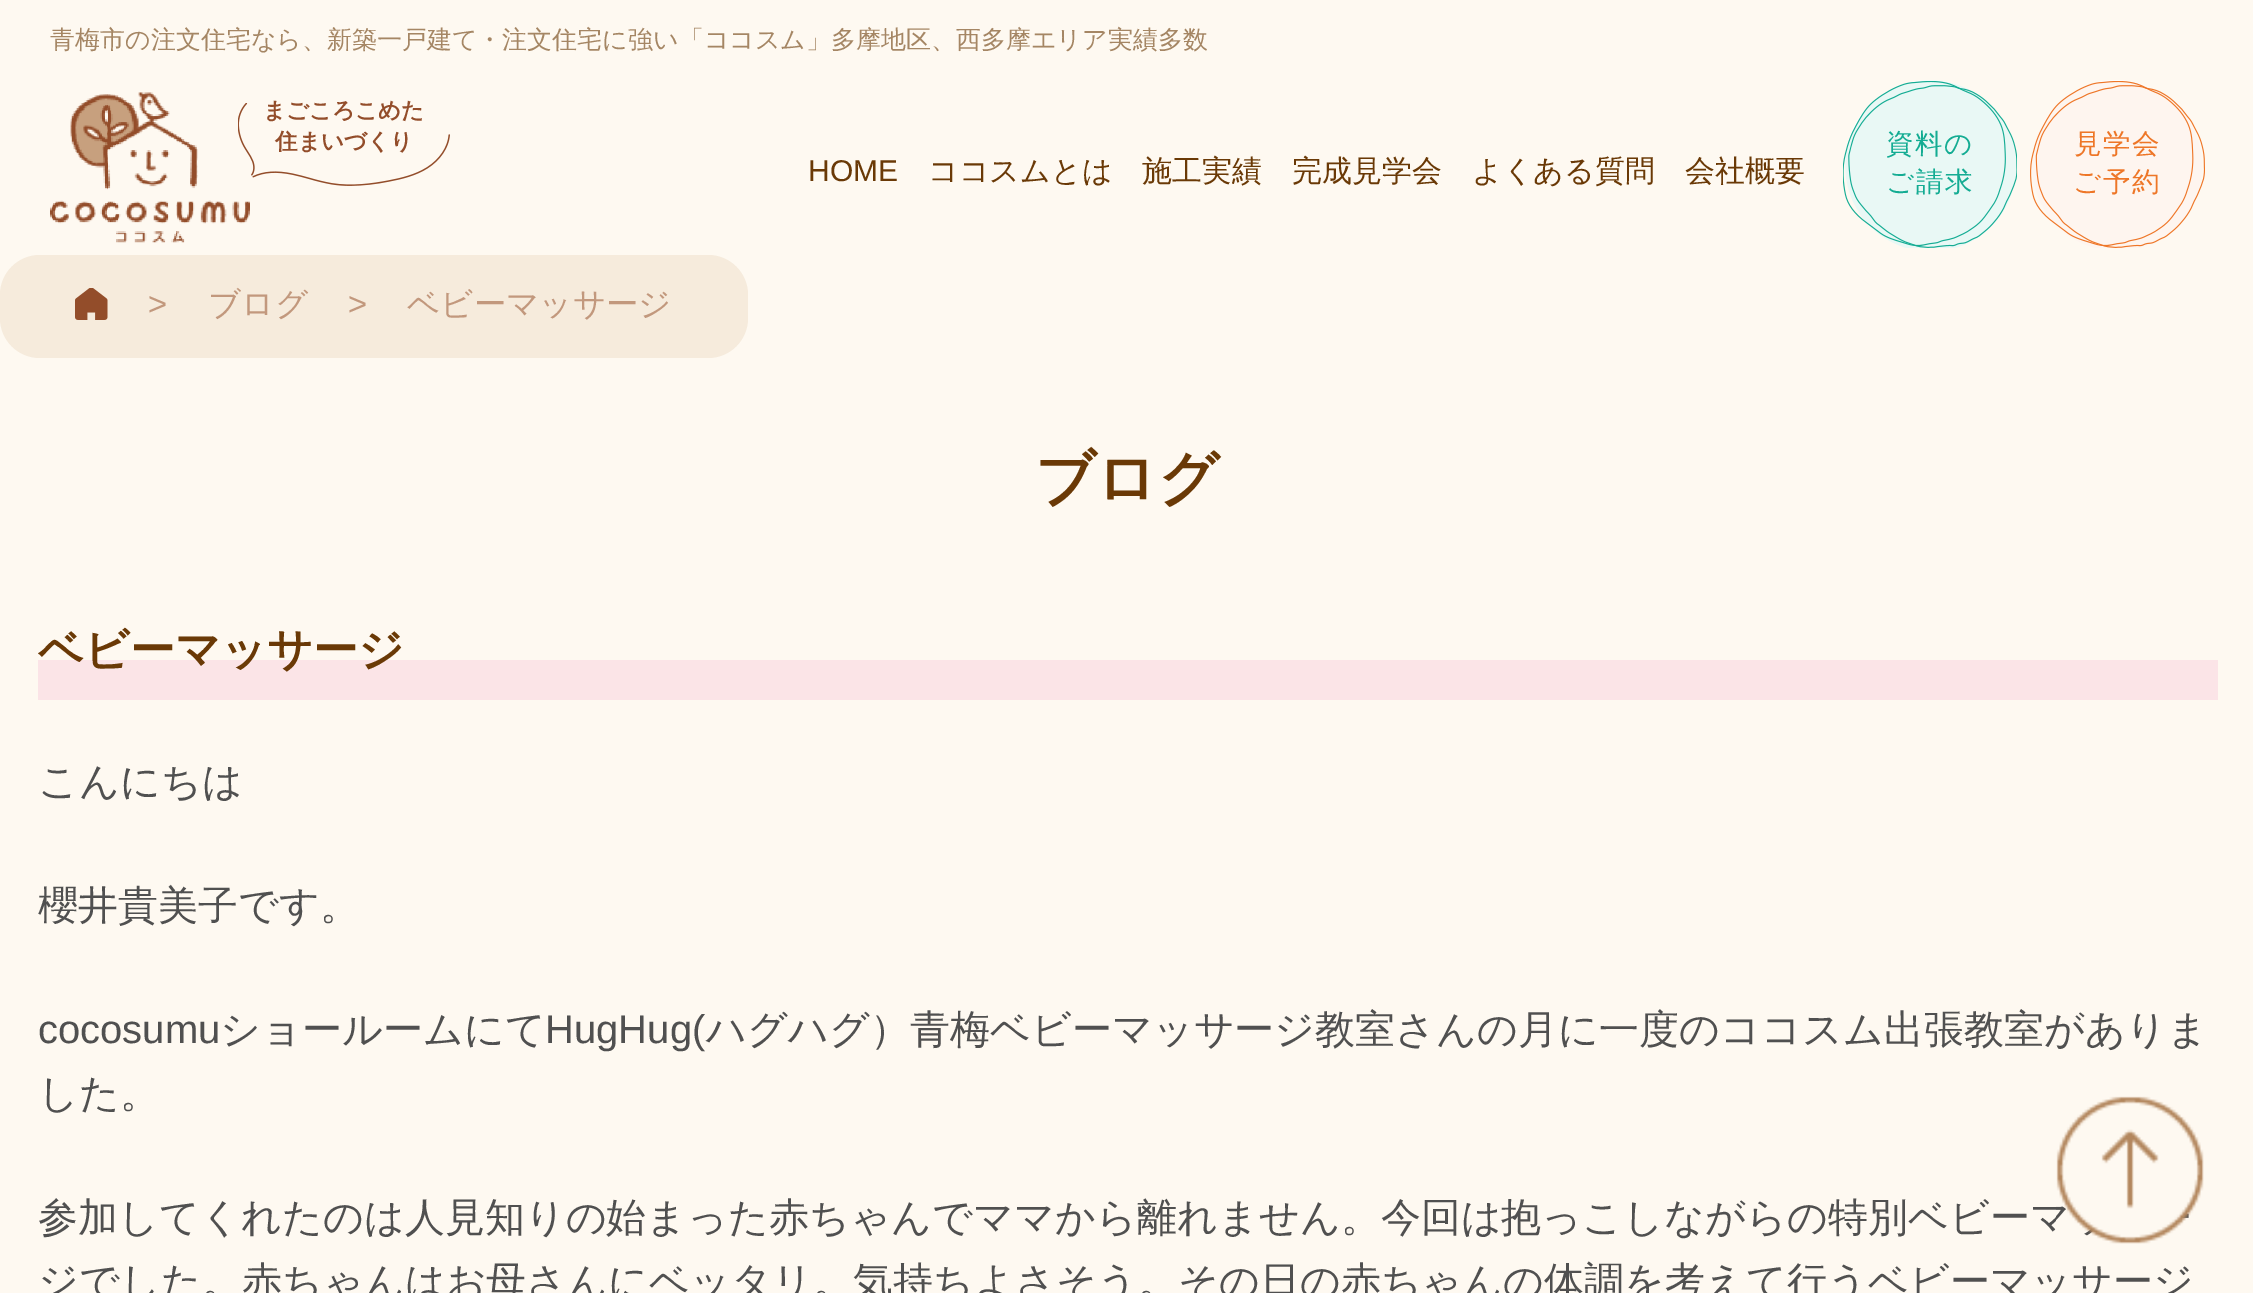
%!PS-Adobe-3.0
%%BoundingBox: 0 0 2253 1293
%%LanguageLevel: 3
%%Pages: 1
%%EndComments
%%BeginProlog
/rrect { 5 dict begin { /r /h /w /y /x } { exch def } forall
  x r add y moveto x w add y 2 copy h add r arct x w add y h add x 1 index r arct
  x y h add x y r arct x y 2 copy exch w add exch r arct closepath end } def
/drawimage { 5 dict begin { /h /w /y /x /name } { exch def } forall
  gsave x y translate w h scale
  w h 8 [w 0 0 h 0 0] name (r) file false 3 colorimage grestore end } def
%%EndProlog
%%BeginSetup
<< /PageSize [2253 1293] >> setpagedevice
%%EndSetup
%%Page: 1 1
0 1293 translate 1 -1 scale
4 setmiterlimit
0.996 0.976 0.945 setrgbcolor
0 0 2253 1293 rectfill
(images/1.raw) 50 92 200 151 drawimage
(images/2.raw) 238 103 212 83 drawimage
(images/3.raw) 1843 80 174 168 drawimage
(images/4.raw) 2030 80 175 168 drawimage
0.965 0.922 0.863 setrgbcolor
0 255 748 103 40 rrect fill
(images/5.raw) 75 288 33 32 drawimage
0.984 0.894 0.906 setrgbcolor
38 660 2180 40 rectfill
/WenQuanYiZenHei-Medium [25 0 0 -25 0 0] selectfont
0.647 0.525 0.392 setrgbcolor
50 48 moveto (青梅市の注文住宅なら、新築一戸建て・注文住宅に強い「ココスム」多摩地区、西多摩エリア実績多数) show
/WenQuanYiZenHei-Bold [22.5 0 0 -22.5 0 0] selectfont
0.576 0.302 0.165 setrgbcolor
263 118 moveto (まごころこめた) show
275 149 moveto (住まいづくり) show
/LiberationSans-Regular [30 0 0 -30 0 0] selectfont
0.416 0.224 0.024 setrgbcolor
808 181 moveto (HOME) show
/WenQuanYiZenHei-Medium [30 0 0 -30 0 0] selectfont
928 181 moveto (ココスムとは) show
1142 181 moveto (施工実績) show
1292 181 moveto (完成見学会) show
1472 181 moveto (よくある質問) show
1685 181 moveto (会社概要) show
/WenQuanYiZenHei-Medium [27.5 0 0 -27.5 0 0] selectfont
0.078 0.675 0.576 setrgbcolor
1886 153 moveto 1.5 0 (資料の) ashow
1886 191 moveto 1.5 0 (ご請求) ashow
0.933 0.463 0.153 setrgbcolor
2074 153 moveto 1.5 0 (見学会) ashow
2073 191 moveto 1.5 0 (ご予約) ashow
/LiberationSans-Regular [32.5 0 0 -32.5 0 0] selectfont
0.761 0.596 0.49 setrgbcolor
148 315 moveto (>) show
/WenQuanYiZenHei-Medium [32.5 0 0 -32.5 0 0] selectfont
208 315 moveto (ブログ) show
/LiberationSans-Regular [32.5 0 0 -32.5 0 0] selectfont
348 315 moveto (>) show
/WenQuanYiZenHei-Medium [32.5 0 0 -32.5 0 0] selectfont
407 315 moveto (ベビーマッサージ) show
/WenQuanYiZenHei-Bold [60 0 0 -60 0 0] selectfont
0.416 0.224 0.024 setrgbcolor
1035 499 moveto (ブログ) show
/WenQuanYiZenHei-Bold [45 0 0 -45 0 0] selectfont
38 665 moveto (ベビーマッサージ) show
/WenQuanYiZenHei-Medium [40 0 0 -40 0 0] selectfont
0.314 setgray
38 795 moveto (こんにちは) show
38 919 moveto (櫻井貴美子です。) show
/LiberationSans-Regular [40 0 0 -40 0 0] selectfont
38 1043 moveto (cocosumu) show
/WenQuanYiZenHei-Medium [40 0 0 -40 0 0] selectfont
220 1043 moveto (ショールームにて) show
/LiberationSans-Regular [40 0 0 -40 0 0] selectfont
545 1043 moveto (HugHug\() show
/WenQuanYiZenHei-Medium [40 0 0 -40 0 0] selectfont
706 1043 moveto (ハグハグ）青梅ベビーマッサージ教室さんの月に一度のココスム出張教室がありま) show
38 1107 moveto (した。) show
38 1231 moveto (参加してくれたのは人見知りの始まった赤ちゃんでママから離れません。今回は抱っこしながらの特別ベビーマ) show
38 1295 moveto (ジでした。赤ちゃんはお母さんにベッタリ。気持ちよさそう。その日の赤ちゃんの体調を考えて行うベビーマッサージ) show
(images/6.raw) 2056 1096 148 148 drawimage
showpage
%%EOF
